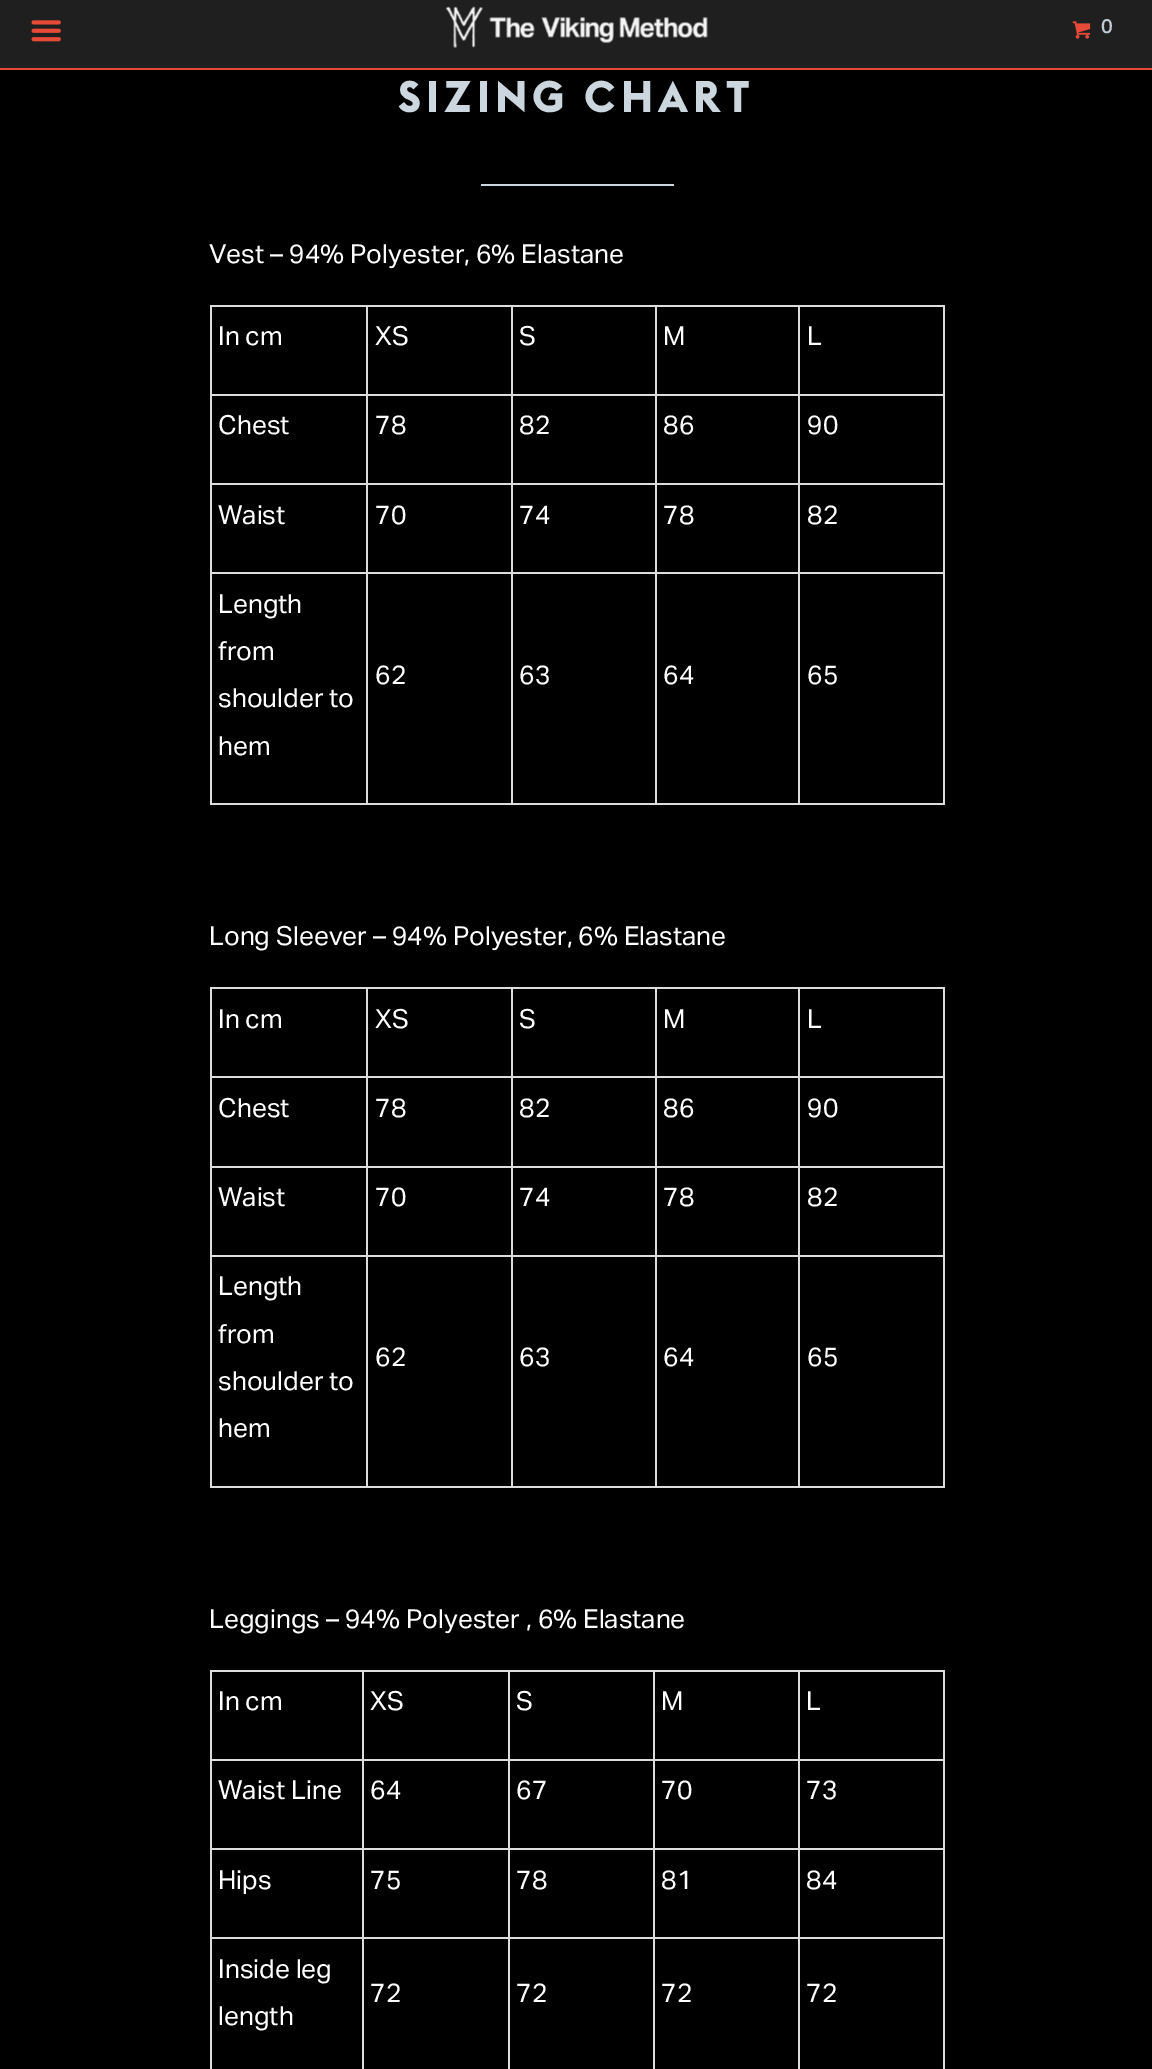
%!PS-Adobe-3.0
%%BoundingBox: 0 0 1152 2069
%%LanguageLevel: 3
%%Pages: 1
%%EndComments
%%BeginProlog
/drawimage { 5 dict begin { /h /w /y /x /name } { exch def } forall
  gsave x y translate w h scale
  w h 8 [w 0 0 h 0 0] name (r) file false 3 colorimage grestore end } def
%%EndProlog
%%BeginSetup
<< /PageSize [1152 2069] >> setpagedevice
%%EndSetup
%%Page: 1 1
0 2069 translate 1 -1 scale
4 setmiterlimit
0 setgray
0 0 1152 2069 rectfill
0.122 setgray
0 0 1152 68 rectfill
0.902 0.282 0.208 setrgbcolor
0 68 1152 2 rectfill
(images/1.raw) 31 20 30 22 drawimage
(images/2.raw) 445 6 263 42 drawimage
(images/3.raw) 1072 21 19 18 drawimage
0.8 0.839 0.871 setrgbcolor
481 184 193 2 rectfill
0.863 setgray
210 305 735 2 rectfill
210 394 735 2 rectfill
210 483 735 2 rectfill
210 572 735 2 rectfill
210 803 735 2 rectfill
366 305 2 500 rectfill
210 305 2 500 rectfill
511 305 2 500 rectfill
655 305 2 500 rectfill
798 305 2 500 rectfill
943 305 2 500 rectfill
210 987 735 2 rectfill
210 1076 735 2 rectfill
210 1166 735 2 rectfill
210 1255 735 2 rectfill
210 1486 735 2 rectfill
366 987 2 501 rectfill
210 987 2 501 rectfill
511 987 2 501 rectfill
655 987 2 501 rectfill
798 987 2 501 rectfill
943 987 2 501 rectfill
210 1670 735 2 rectfill
210 1759 735 2 rectfill
210 1848 735 2 rectfill
210 1937 735 2 rectfill
362 1670 2 399 rectfill
210 1670 2 399 rectfill
508 1670 2 399 rectfill
653 1670 2 399 rectfill
798 1670 2 399 rectfill
943 1670 2 399 rectfill
/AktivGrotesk-Bold [19 0 0 -19 0 0] selectfont
0.761 0.796 0.827 setrgbcolor
1101 33 moveto 4 0 (0) ashow
/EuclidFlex-Bold [43.75 0 0 -43.75 0 0] selectfont
0.8 0.839 0.871 setrgbcolor
398 112 moveto 5.25 0 (SIZING CHART) ashow
/AktivGrotesk-Regular [26.25 0 0 -26.25 0 0] selectfont
1 setgray
209 263 moveto (Vest – 94% Polyester, 6% Elastane) show
218 345 moveto (In cm) show
375 345 moveto (XS) show
519 345 moveto (S) show
663 345 moveto (M) show
807 345 moveto (L) show
218 434 moveto (Chest) show
375 434 moveto (78) show
519 434 moveto (82) show
663 434 moveto (86) show
807 434 moveto (90) show
218 524 moveto (Waist) show
375 524 moveto (70) show
519 524 moveto (74) show
663 524 moveto (78) show
807 524 moveto (82) show
218 613 moveto (Length) show
218 660 moveto (from) show
218 707 moveto (shoulder to) show
218 755 moveto (hem) show
375 684 moveto (62) show
519 684 moveto (63) show
663 684 moveto (64) show
807 684 moveto (65) show
209 945 moveto (Long Sleever – 94% Polyester, 6% Elastane) show
218 1028 moveto (In cm) show
375 1028 moveto (XS) show
519 1028 moveto (S) show
663 1028 moveto (M) show
807 1028 moveto (L) show
218 1117 moveto (Chest) show
375 1117 moveto (78) show
519 1117 moveto (82) show
663 1117 moveto (86) show
807 1117 moveto (90) show
218 1206 moveto (Waist) show
375 1206 moveto (70) show
519 1206 moveto (74) show
663 1206 moveto (78) show
807 1206 moveto (82) show
218 1295 moveto (Length) show
218 1343 moveto (from) show
218 1390 moveto (shoulder to) show
218 1437 moveto (hem) show
375 1366 moveto (62) show
519 1366 moveto (63) show
663 1366 moveto (64) show
807 1366 moveto (65) show
209 1628 moveto (Leggings – 94% Polyester , 6% Elastane) show
218 1710 moveto (In cm) show
370 1710 moveto (XS) show
516 1710 moveto (S) show
661 1710 moveto (M) show
806 1710 moveto (L) show
218 1799 moveto (Waist Line) show
370 1799 moveto (64) show
516 1799 moveto (67) show
661 1799 moveto (70) show
806 1799 moveto (73) show
218 1889 moveto (Hips) show
370 1889 moveto (75) show
516 1889 moveto (78) show
661 1889 moveto (81) show
806 1889 moveto (84) show
218 1978 moveto (Inside leg) show
218 2025 moveto (length) show
370 2002 moveto (72) show
516 2002 moveto (72) show
661 2002 moveto (72) show
806 2002 moveto (72) show
showpage
%%EOF
